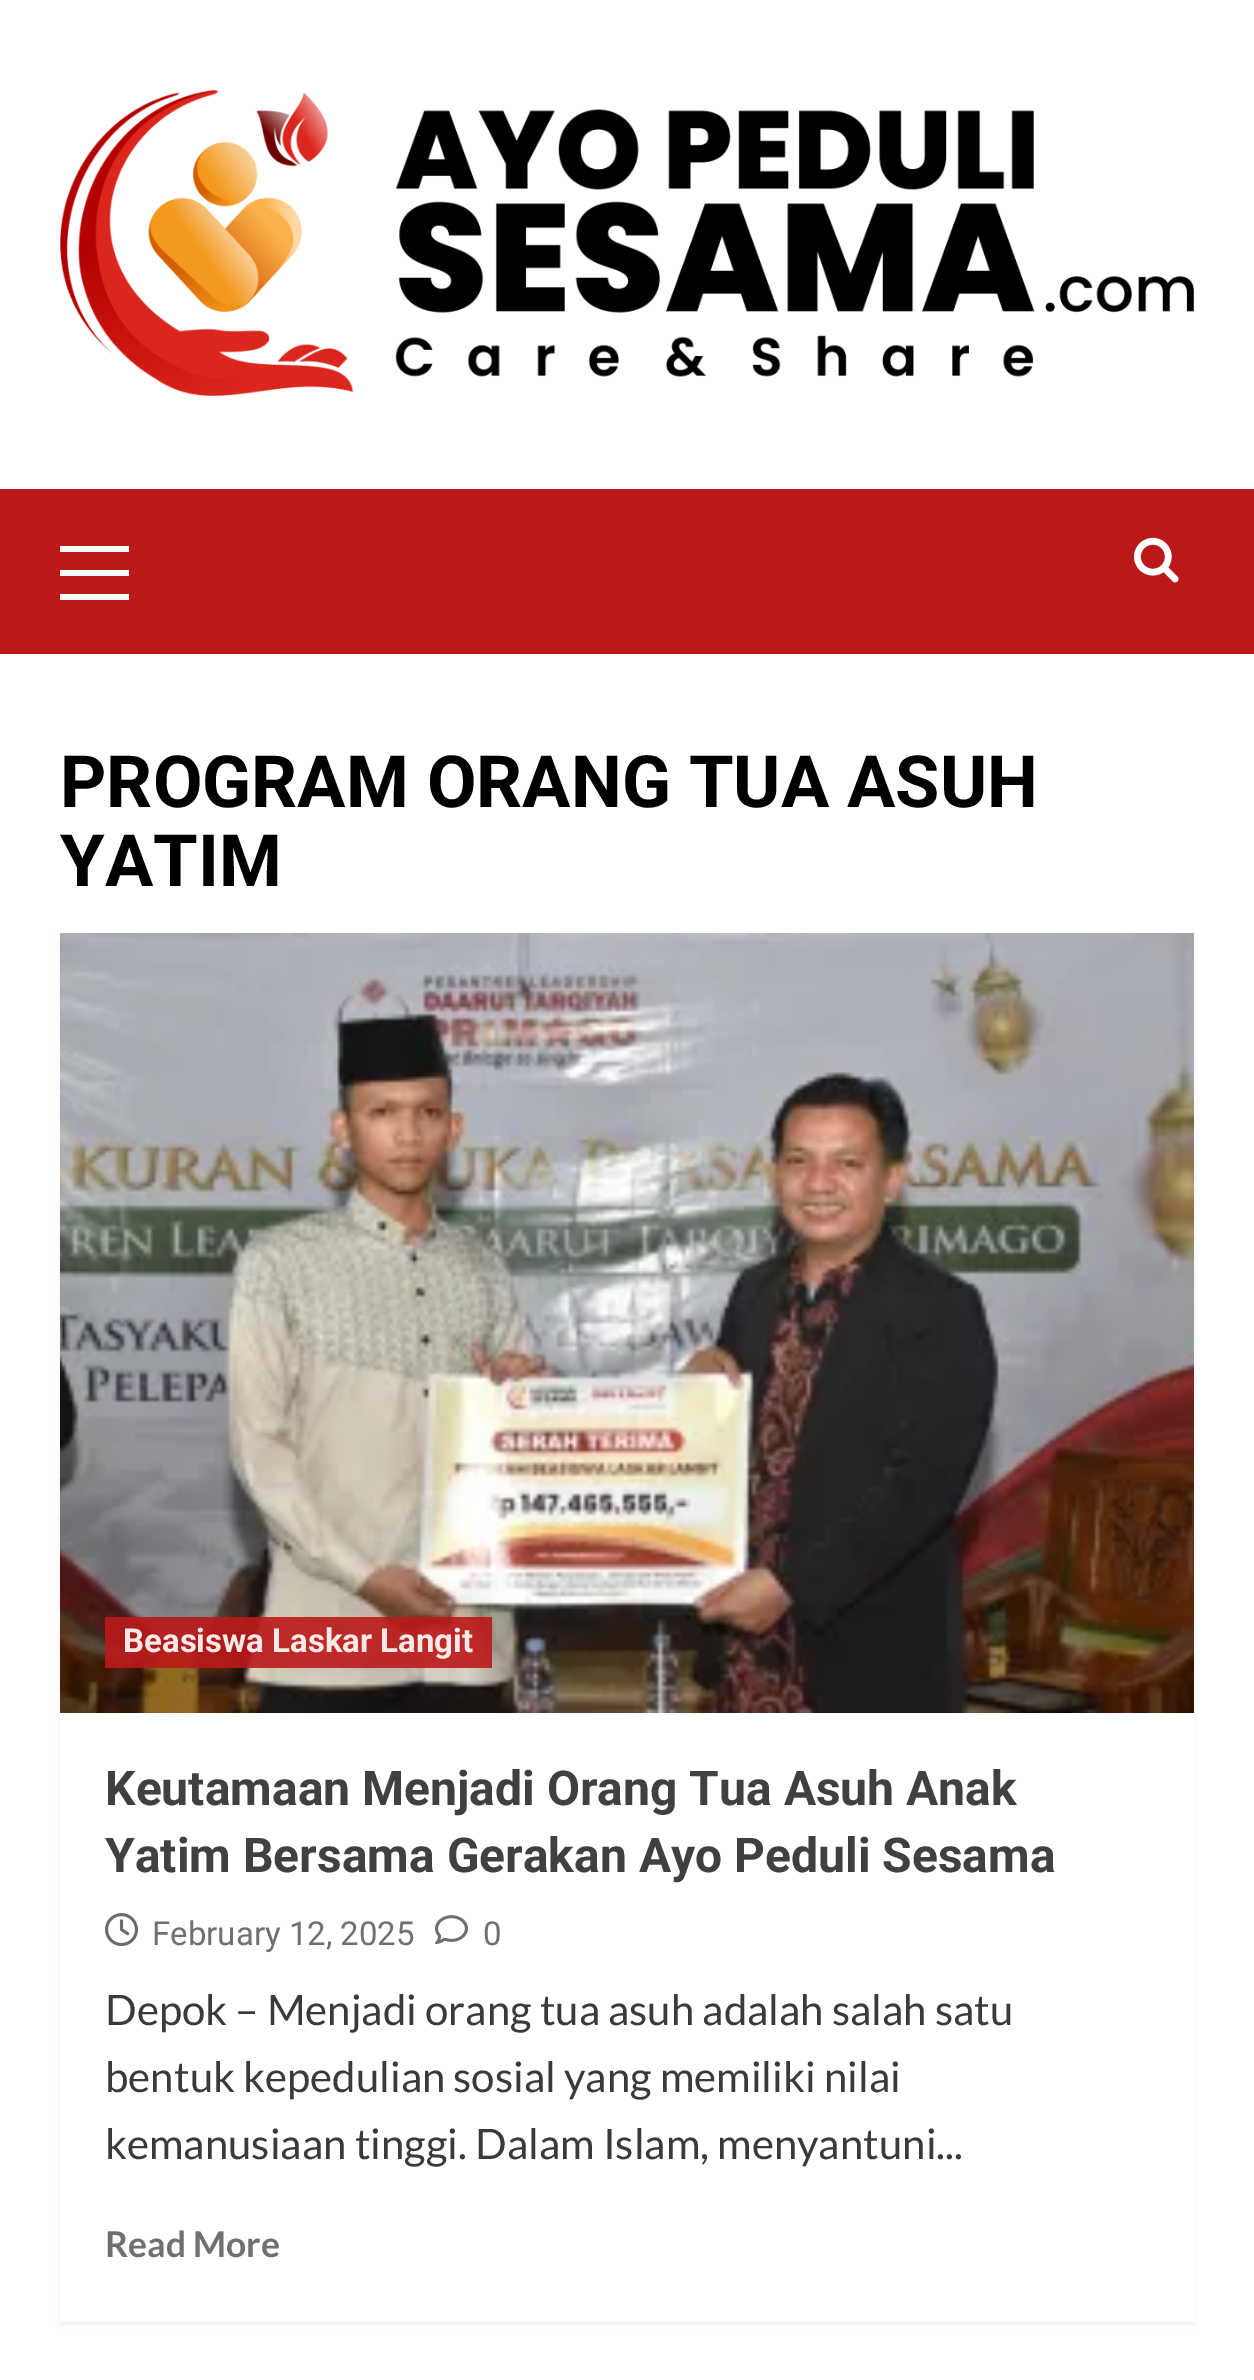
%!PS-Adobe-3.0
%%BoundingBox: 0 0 1254 2380
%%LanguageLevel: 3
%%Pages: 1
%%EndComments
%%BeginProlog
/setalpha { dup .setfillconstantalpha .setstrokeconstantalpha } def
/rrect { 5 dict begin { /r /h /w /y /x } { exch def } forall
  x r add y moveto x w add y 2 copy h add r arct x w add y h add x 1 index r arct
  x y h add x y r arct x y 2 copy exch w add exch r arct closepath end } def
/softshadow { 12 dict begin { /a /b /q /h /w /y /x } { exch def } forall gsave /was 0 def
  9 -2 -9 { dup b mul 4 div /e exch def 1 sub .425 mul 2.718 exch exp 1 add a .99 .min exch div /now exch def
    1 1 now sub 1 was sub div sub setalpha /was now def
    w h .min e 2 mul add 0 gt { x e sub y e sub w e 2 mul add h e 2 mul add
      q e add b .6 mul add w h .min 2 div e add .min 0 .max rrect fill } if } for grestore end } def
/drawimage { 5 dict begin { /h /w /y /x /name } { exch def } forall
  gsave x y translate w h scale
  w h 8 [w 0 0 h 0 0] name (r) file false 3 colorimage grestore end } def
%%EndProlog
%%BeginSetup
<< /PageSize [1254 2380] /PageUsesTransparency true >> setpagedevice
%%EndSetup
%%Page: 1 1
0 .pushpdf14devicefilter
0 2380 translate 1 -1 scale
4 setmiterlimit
1 setgray
0 0 1254 2380 rectfill
(images/1.raw) 60 90 1134 306 drawimage
0.733 0.098 0.098 setrgbcolor
0 489 1254 165 rectfill
1 setgray
60 570 69 6 rectfill
60 546 69 6 rectfill
60 594 69 6 rectfill
(images/2.raw) 1134 537 45 46 drawimage
gsave
newpath 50 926 moveto 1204 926 lineto 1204 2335 lineto 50 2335 lineto closepath 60 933 moveto 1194 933 lineto 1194 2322 lineto 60 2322 lineto closepath eoclip newpath
0 setgray
60 936 1134 1389 0 3 0.05 softshadow
grestore
(images/3.raw) 60 933 1134 780 drawimage
0.9 setalpha
0.733 0.098 0.098 setrgbcolor
105 1617 387 51 rectfill
1 setalpha
(images/4.raw) 105 1913 33 34 drawimage
(images/5.raw) 435 1915 33 29 drawimage
/Roboto-Bold [72 0 0 -72 0 0] selectfont
0 setgray
60 807 moveto (PROGRAM ORANG TUA ASUH) show
60 886 moveto (YATIM) show
/Roboto-Bold [33 0 0 -33 0 0] selectfont
0.973 0.914 0.914 setrgbcolor
123 1652 moveto (Beasiswa Laskar Langit) show
/Roboto-Bold [48 0 0 -48 0 0] selectfont
0.251 setgray
105 1805 moveto (Keutamaan Menjadi Orang Tua Asuh Anak) show
105 1872 moveto (Yatim Bersama Gerakan Ayo Peduli Sesama) show
/Roboto-Regular [33 0 0 -33 0 0] selectfont
0.439 setgray
152 1945 moveto (February 12, 2025) show
483 1945 moveto (0) show
/Lato-Regular [42 0 0 -42 0 0] selectfont
0.227 setgray
105 2025 moveto (Depok – Menjadi orang tua asuh adalah salah satu) show
105 2092 moveto (bentuk kepedulian sosial yang memiliki nilai) show
105 2159 moveto (kemanusiaan tinggi. Dalam Islam, menyantuni...) show
/Lato-Bold [35.5 0 0 -35.5 0 0] selectfont
0.439 setgray
105 2257 moveto (Read More) show
.poppdf14devicefilter showpage
%%EOF
